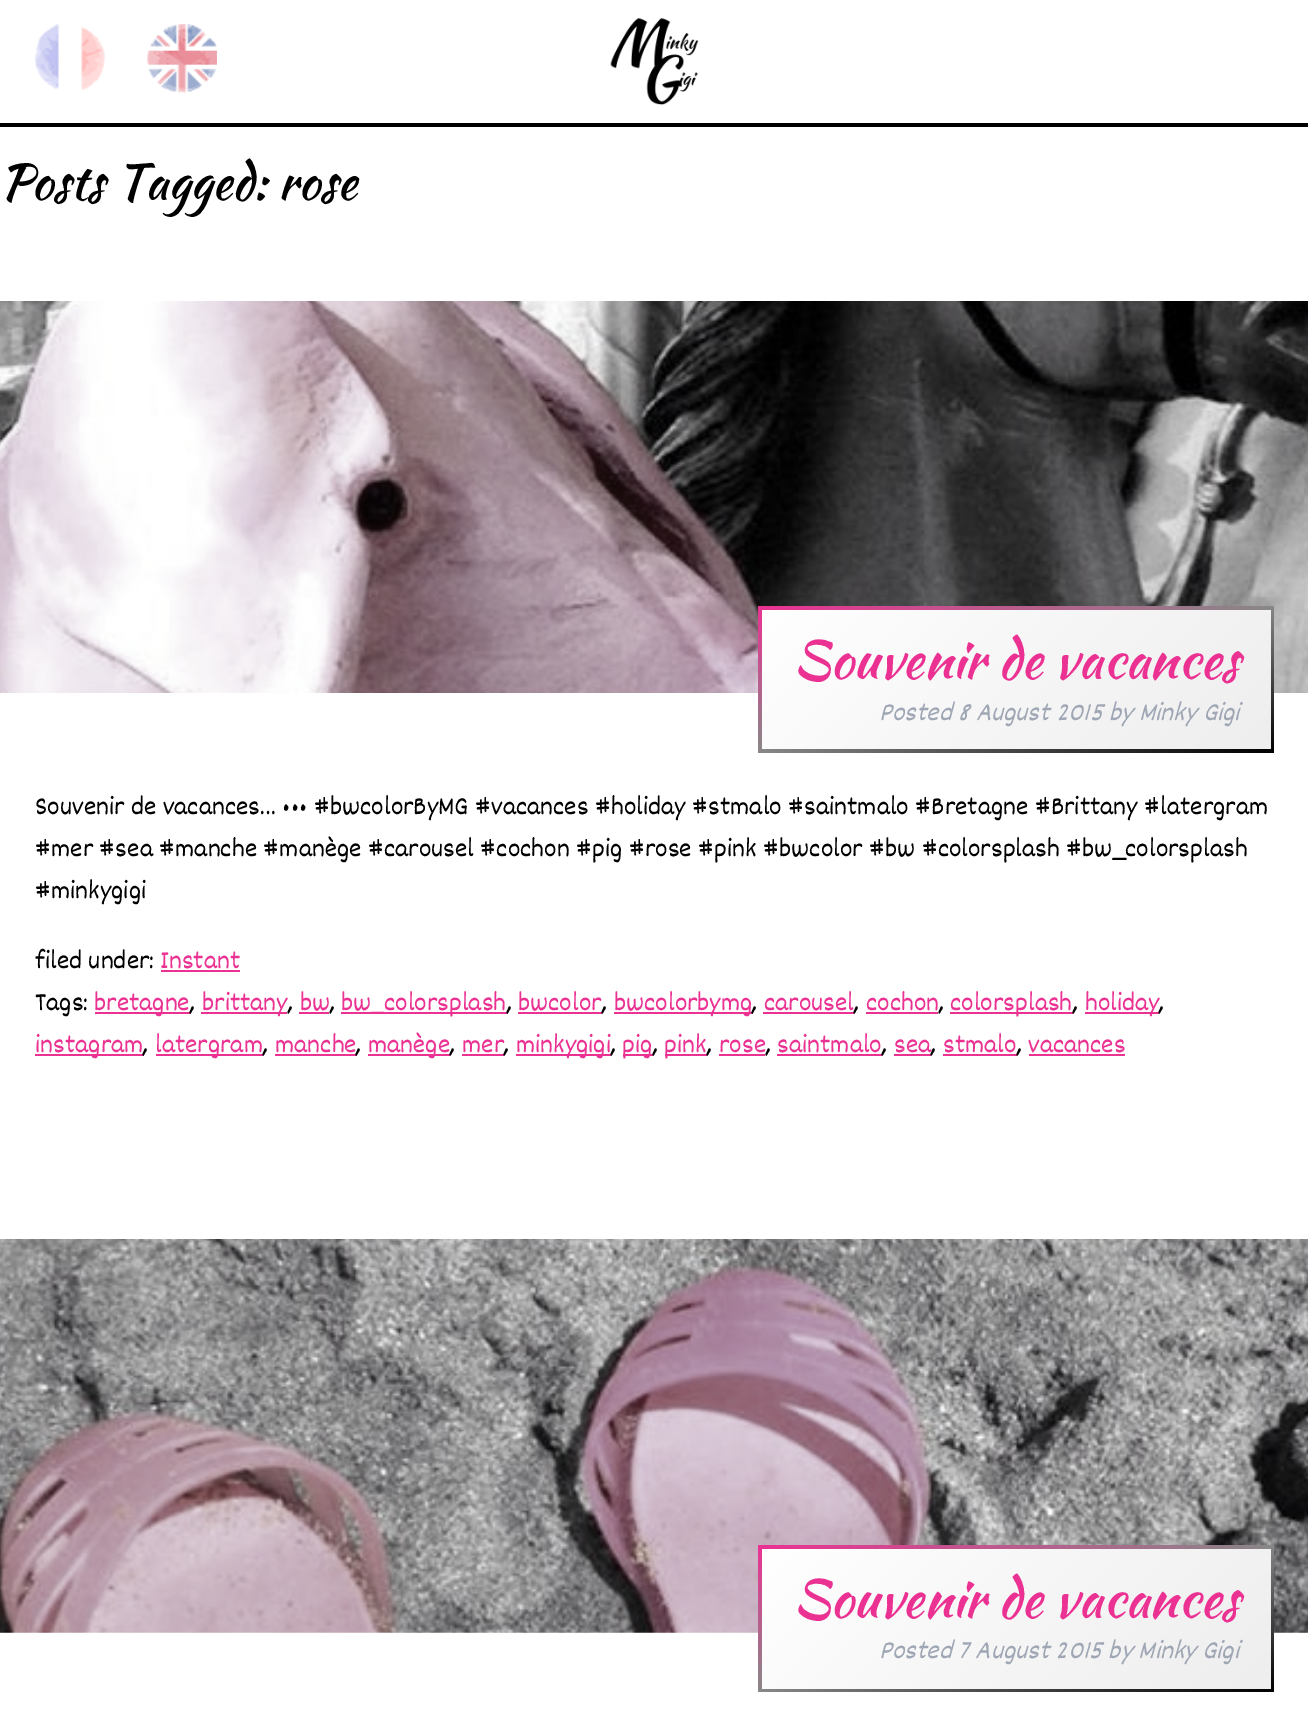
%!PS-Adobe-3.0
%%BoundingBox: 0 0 1308 1735
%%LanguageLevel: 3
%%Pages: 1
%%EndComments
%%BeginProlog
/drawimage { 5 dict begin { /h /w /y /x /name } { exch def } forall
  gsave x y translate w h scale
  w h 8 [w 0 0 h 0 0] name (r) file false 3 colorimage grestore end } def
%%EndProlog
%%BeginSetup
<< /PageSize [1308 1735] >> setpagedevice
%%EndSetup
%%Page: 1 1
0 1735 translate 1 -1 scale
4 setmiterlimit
1 setgray
0 0 1308 1735 rectfill
0 setgray
0 123 1308 4 rectfill
(images/1.raw) 35 24 70 66 drawimage
(images/2.raw) 147 24 70 69 drawimage
(images/3.raw) 610 18 89 87 drawimage
(images/4.raw) 0 301 1308 392 drawimage
gsave newpath 762 610 moveto 1271 610 lineto 1271 749 lineto 762 749 lineto closepath clip newpath
<< /ShadingType 2 /ColorSpace /DeviceRGB /Coords [850 513 1182 845] /Extend [true true] /Function << /FunctionType 2 /Domain [0 1] /C0 [1 1 1] /C1 [0.933 0.933 0.933] /N 1 >> >> shfill grestore
gsave newpath 758 749 moveto 1274 749 lineto 1274 753 lineto 758 753 lineto closepath clip newpath
<< /ShadingType 2 /ColorSpace /DeviceRGB /Coords [1274 751 758 751] /Extend [true true] /Function << /FunctionType 2 /Domain [0 1] /C0 [0 0 0] /C1 [0.533 0.533 0.533] /N 1 >> >> shfill grestore
gsave newpath 758 606 moveto 1274 606 lineto 1274 610 lineto 758 610 lineto closepath clip newpath
<< /ShadingType 2 /ColorSpace /DeviceRGB /Coords [758 607 1274 607] /Extend [true true] /Function << /FunctionType 2 /Domain [0 1] /C0 [0.922 0.196 0.576] /C1 [0.533 0.533 0.533] /N 1 >> >> shfill grestore
gsave newpath 1271 606 moveto 1274 606 lineto 1274 753 lineto 1271 753 lineto closepath clip newpath
<< /ShadingType 2 /ColorSpace /DeviceRGB /Coords [1272 753 1272 606] /Extend [true true] /Function << /FunctionType 2 /Domain [0 1] /C0 [0 0 0] /C1 [0.533 0.533 0.533] /N 1 >> >> shfill grestore
gsave newpath 758 606 moveto 762 606 lineto 762 753 lineto 758 753 lineto closepath clip newpath
<< /ShadingType 2 /ColorSpace /DeviceRGB /Coords [760 606 760 753] /Extend [true true] /Function << /FunctionType 2 /Domain [0 1] /C0 [0.922 0.196 0.576] /C1 [0.533 0.533 0.533] /N 1 >> >> shfill grestore
0.922 0.196 0.576 setrgbcolor
161 970 79 2 rectfill
95 1012 96 2 rectfill
201 1012 86 2 rectfill
299 1012 30 2 rectfill
341 1012 167 2 rectfill
518 1012 84 2 rectfill
614 1012 139 2 rectfill
763 1012 91 2 rectfill
866 1012 72 2 rectfill
950 1012 123 2 rectfill
1085 1012 74 2 rectfill
35 1054 109 2 rectfill
156 1054 107 2 rectfill
275 1054 82 2 rectfill
368 1054 82 2 rectfill
462 1054 42 2 rectfill
516 1054 95 2 rectfill
623 1054 30 2 rectfill
665 1054 42 2 rectfill
719 1054 46 2 rectfill
777 1054 105 2 rectfill
894 1054 37 2 rectfill
943 1054 74 2 rectfill
1029 1054 96 2 rectfill
(images/5.raw) 0 1239 1308 394 drawimage
gsave newpath 762 1549 moveto 1271 1549 lineto 1271 1689 lineto 762 1689 lineto closepath clip newpath
<< /ShadingType 2 /ColorSpace /DeviceRGB /Coords [850 1453 1182 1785] /Extend [true true] /Function << /FunctionType 2 /Domain [0 1] /C0 [1 1 1] /C1 [0.933 0.933 0.933] /N 1 >> >> shfill grestore
gsave newpath 758 1689 moveto 1274 1689 lineto 1274 1692 lineto 758 1692 lineto closepath clip newpath
<< /ShadingType 2 /ColorSpace /DeviceRGB /Coords [1274 1691 758 1691] /Extend [true true] /Function << /FunctionType 2 /Domain [0 1] /C0 [0 0 0] /C1 [0.533 0.533 0.533] /N 1 >> >> shfill grestore
gsave newpath 758 1545 moveto 1274 1545 lineto 1274 1549 lineto 758 1549 lineto closepath clip newpath
<< /ShadingType 2 /ColorSpace /DeviceRGB /Coords [758 1547 1274 1547] /Extend [true true] /Function << /FunctionType 2 /Domain [0 1] /C0 [0.922 0.196 0.576] /C1 [0.533 0.533 0.533] /N 1 >> >> shfill grestore
gsave newpath 1271 1545 moveto 1274 1545 lineto 1274 1692 lineto 1271 1692 lineto closepath clip newpath
<< /ShadingType 2 /ColorSpace /DeviceRGB /Coords [1272 1692 1272 1545] /Extend [true true] /Function << /FunctionType 2 /Domain [0 1] /C0 [0 0 0] /C1 [0.533 0.533 0.533] /N 1 >> >> shfill grestore
gsave newpath 758 1545 moveto 762 1545 lineto 762 1692 lineto 758 1692 lineto closepath clip newpath
<< /ShadingType 2 /ColorSpace /DeviceRGB /Coords [760 1545 760 1692] /Extend [true true] /Function << /FunctionType 2 /Domain [0 1] /C0 [0.922 0.196 0.576] /C1 [0.533 0.533 0.533] /N 1 >> >> shfill grestore
/KaushanScript-Regular [49 0 0 -49 0 0] selectfont
0 setgray
0 199 moveto (Posts Tagged: rose) show
/KaushanScript-Regular [52.5 0 0 -52.5 0 0] selectfont
0.922 0.196 0.576 setrgbcolor
793 678 moveto (Souvenir de vacances) show
/Dekko-Italic [28 0 0 -28 0 0] selectfont
0.624 0.651 0.706 setrgbcolor
879 720 moveto (Posted 8 August 2015 by Minky Gigi) show
/Dekko-Regular [28 0 0 -28 0 0] selectfont
0 setgray
35 814 moveto (Souvenir de vacances… ••• #bwcolorByMG #vacances #holiday #stmalo #saintmalo #Bretagne #Brittany #latergram) show
35 856 moveto (#mer #sea #manche #manège #carousel #cochon #pig #rose #pink #bwcolor #bw #colorsplash #bw_colorsplash) show
35 898 moveto (#minkygigi) show
35 968 moveto (filed under:) show
0.922 0.196 0.576 setrgbcolor
160 968 moveto (Instant) show
0 setgray
35 1010 moveto (Tags:) show
0.922 0.196 0.576 setrgbcolor
94 1010 moveto (bretagne) show
0 setgray
190 1010 moveto (,) show
0.922 0.196 0.576 setrgbcolor
202 1010 moveto (brittany) show
0 setgray
288 1010 moveto (,) show
0.922 0.196 0.576 setrgbcolor
300 1010 moveto (bw) show
0 setgray
330 1010 moveto (,) show
0.922 0.196 0.576 setrgbcolor
341 1010 moveto (bw_colorsplash) show
0 setgray
507 1010 moveto (,) show
0.922 0.196 0.576 setrgbcolor
518 1010 moveto (bwcolor) show
0 setgray
602 1010 moveto (,) show
0.922 0.196 0.576 setrgbcolor
614 1010 moveto (bwcolorbymg) show
0 setgray
752 1010 moveto (,) show
0.922 0.196 0.576 setrgbcolor
764 1010 moveto (carousel) show
0 setgray
854 1010 moveto (,) show
0.922 0.196 0.576 setrgbcolor
866 1010 moveto (cochon) show
0 setgray
939 1010 moveto (,) show
0.922 0.196 0.576 setrgbcolor
950 1010 moveto (colorsplash) show
0 setgray
1073 1010 moveto (,) show
0.922 0.196 0.576 setrgbcolor
1085 1010 moveto (holiday) show
0 setgray
1159 1010 moveto (,) show
0.922 0.196 0.576 setrgbcolor
35 1052 moveto (instagram) show
0 setgray
143 1052 moveto (,) show
0.922 0.196 0.576 setrgbcolor
155 1052 moveto (latergram) show
0 setgray
263 1052 moveto (,) show
0.922 0.196 0.576 setrgbcolor
275 1052 moveto (manche) show
0 setgray
356 1052 moveto (,) show
0.922 0.196 0.576 setrgbcolor
368 1052 moveto (manège) show
0 setgray
450 1052 moveto (,) show
0.922 0.196 0.576 setrgbcolor
462 1052 moveto (mer) show
0 setgray
504 1052 moveto (,) show
0.922 0.196 0.576 setrgbcolor
516 1052 moveto (minkygigi) show
0 setgray
611 1052 moveto (,) show
0.922 0.196 0.576 setrgbcolor
622 1052 moveto (pig) show
0 setgray
653 1052 moveto (,) show
0.922 0.196 0.576 setrgbcolor
664 1052 moveto (pink) show
0 setgray
707 1052 moveto (,) show
0.922 0.196 0.576 setrgbcolor
719 1052 moveto (rose) show
0 setgray
766 1052 moveto (,) show
0.922 0.196 0.576 setrgbcolor
777 1052 moveto (saintmalo) show
0 setgray
882 1052 moveto (,) show
0.922 0.196 0.576 setrgbcolor
894 1052 moveto (sea) show
0 setgray
931 1052 moveto (,) show
0.922 0.196 0.576 setrgbcolor
943 1052 moveto (stmalo) show
0 setgray
1017 1052 moveto (,) show
0.922 0.196 0.576 setrgbcolor
1028 1052 moveto (vacances) show
/KaushanScript-Regular [52.5 0 0 -52.5 0 0] selectfont
793 1617 moveto (Souvenir de vacances) show
/Dekko-Italic [28 0 0 -28 0 0] selectfont
0.624 0.651 0.706 setrgbcolor
879 1658 moveto (Posted 7 August 2015 by Minky Gigi) show
showpage
%%EOF
